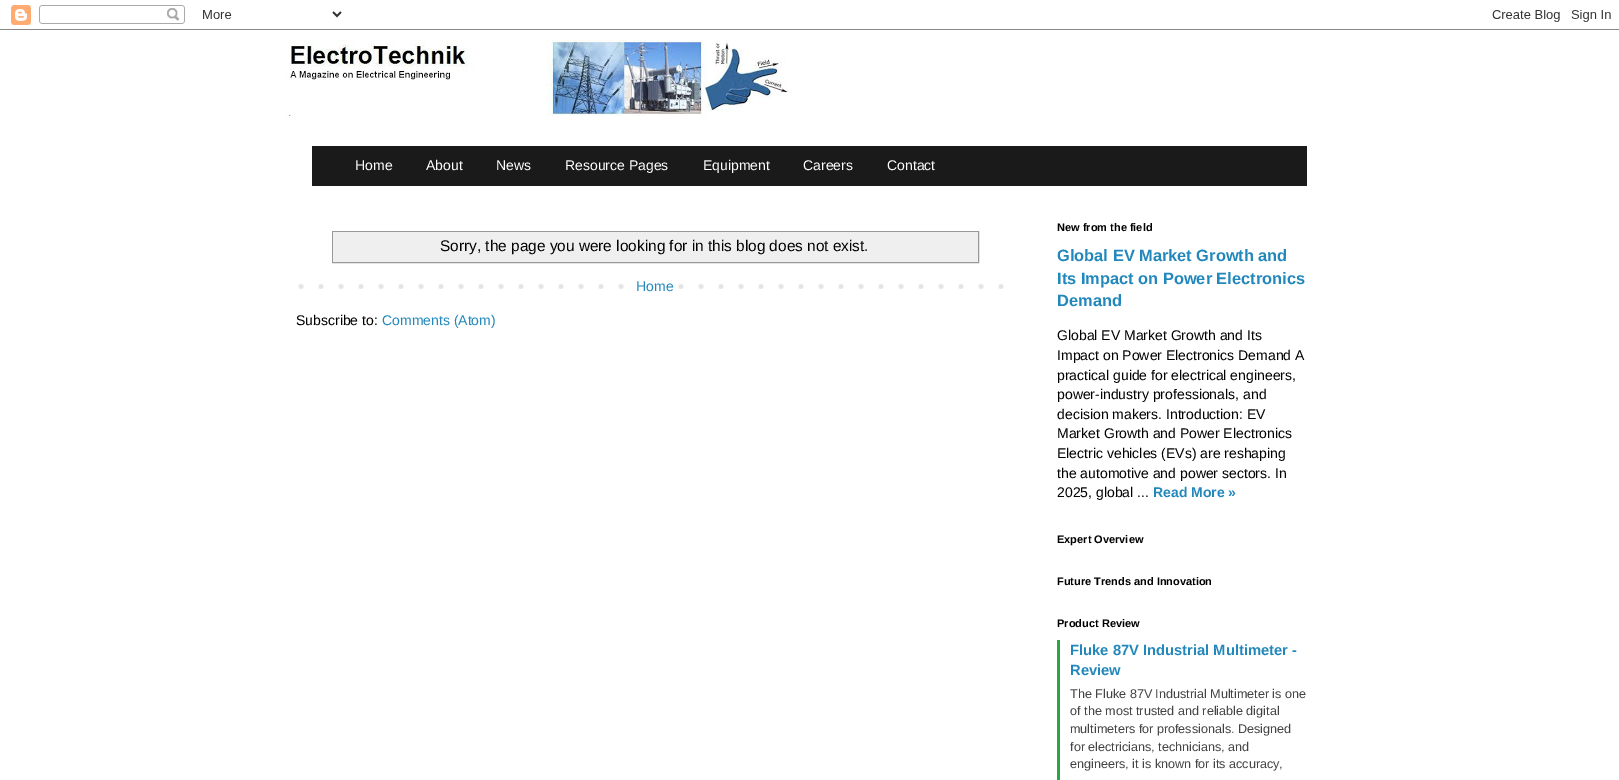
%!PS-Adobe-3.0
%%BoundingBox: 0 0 1619 780
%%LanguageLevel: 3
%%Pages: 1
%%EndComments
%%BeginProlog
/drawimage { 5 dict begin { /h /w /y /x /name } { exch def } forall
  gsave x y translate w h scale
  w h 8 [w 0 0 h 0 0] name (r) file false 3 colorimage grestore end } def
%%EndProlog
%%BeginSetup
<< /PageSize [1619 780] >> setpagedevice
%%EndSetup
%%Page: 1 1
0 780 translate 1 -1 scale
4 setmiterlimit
1 setgray
0 0 1619 780 rectfill
(images/1.raw) 0 5 1619 25 drawimage
(images/2.raw) 285 40 506 76 drawimage
0.102 setgray
312 146 995 40 rectfill
0.6 setgray
332.5 231.5 646 31 rectstroke
0.937 setgray
333 232 645 30 rectfill
(images/3.raw) 298 284 706 5 drawimage
1 setgray
638 284 26 5 rectfill
0.157 0.655 0.271 setrgbcolor
1057 640 3 140 rectfill
/LiberationSans-Regular [14 0 0 -14 0 0] selectfont
1 setgray
355 170 moveto (Home) show
426 170 moveto (About) show
496 170 moveto (News) show
565 170 moveto (Resource Pages) show
703 170 moveto (Equipment) show
803 170 moveto (Careers) show
887 170 moveto (Contact) show
/LiberationSans-Regular [15.4 0 0 -15.4 0 0] selectfont
0 setgray
440 251 moveto (Sorry, the page you were looking for in this blog does not exist.) show
/LiberationSans-Regular [14 0 0 -14 0 0] selectfont
0.133 0.533 0.733 setrgbcolor
636 291 moveto (Home) show
0 setgray
296 325 moveto (Subscribe to:) show
0.133 0.533 0.733 setrgbcolor
382 325 moveto (Comments \(Atom\)) show
/LiberationSans-Bold [11 0 0 -11 0 0] selectfont
0 setgray
1057 231 moveto (New from the field) show
/LiberationSans-Bold [16.4 0 0 -16.4 0 0] selectfont
0.133 0.533 0.733 setrgbcolor
1057 261 moveto (Global EV Market Growth and) show
1057 284 moveto (Its Impact on Power Electronics) show
1057 306 moveto (Demand) show
/LiberationSans-Regular [14 0 0 -14 0 0] selectfont
0 setgray
1057 340 moveto (Global EV Market Growth and Its) show
1057 360 moveto (Impact on Power Electronics Demand A) show
1057 380 moveto (practical guide for electrical engineers,) show
1057 399 moveto (power-industry professionals, and) show
1057 419 moveto (decision makers. Introduction: EV) show
1057 438 moveto (Market Growth and Power Electronics) show
1057 458 moveto (Electric vehicles \(EVs\) are reshaping) show
1057 478 moveto (the automotive and power sectors. In) show
1057 497 moveto (2025, global ...) show
/LiberationSans-Bold [14 0 0 -14 0 0] selectfont
0.133 0.533 0.733 setrgbcolor
1153 497 moveto (Read More ») show
/LiberationSans-Bold [11 0 0 -11 0 0] selectfont
0 setgray
1057 543 moveto (Expert Overview) show
1057 585 moveto (Future Trends and Innovation) show
1057 627 moveto (Product Review) show
/LiberationSans-Bold [14.75 0 0 -14.75 0 0] selectfont
0.133 0.533 0.733 setrgbcolor
1070 655 moveto (Fluke 87V Industrial Multimeter -) show
1070 675 moveto (Review) show
/LiberationSans-Regular [12.6 0 0 -12.6 0 0] selectfont
0.267 setgray
1070 698 moveto (The Fluke 87V Industrial Multimeter is one) show
1070 715 moveto (of the most trusted and reliable digital) show
1070 733 moveto (multimeters for professionals. Designed) show
1070 751 moveto (for electricians, technicians, and) show
1070 768 moveto (engineers, it is known for its accuracy,) show
showpage
%%EOF
